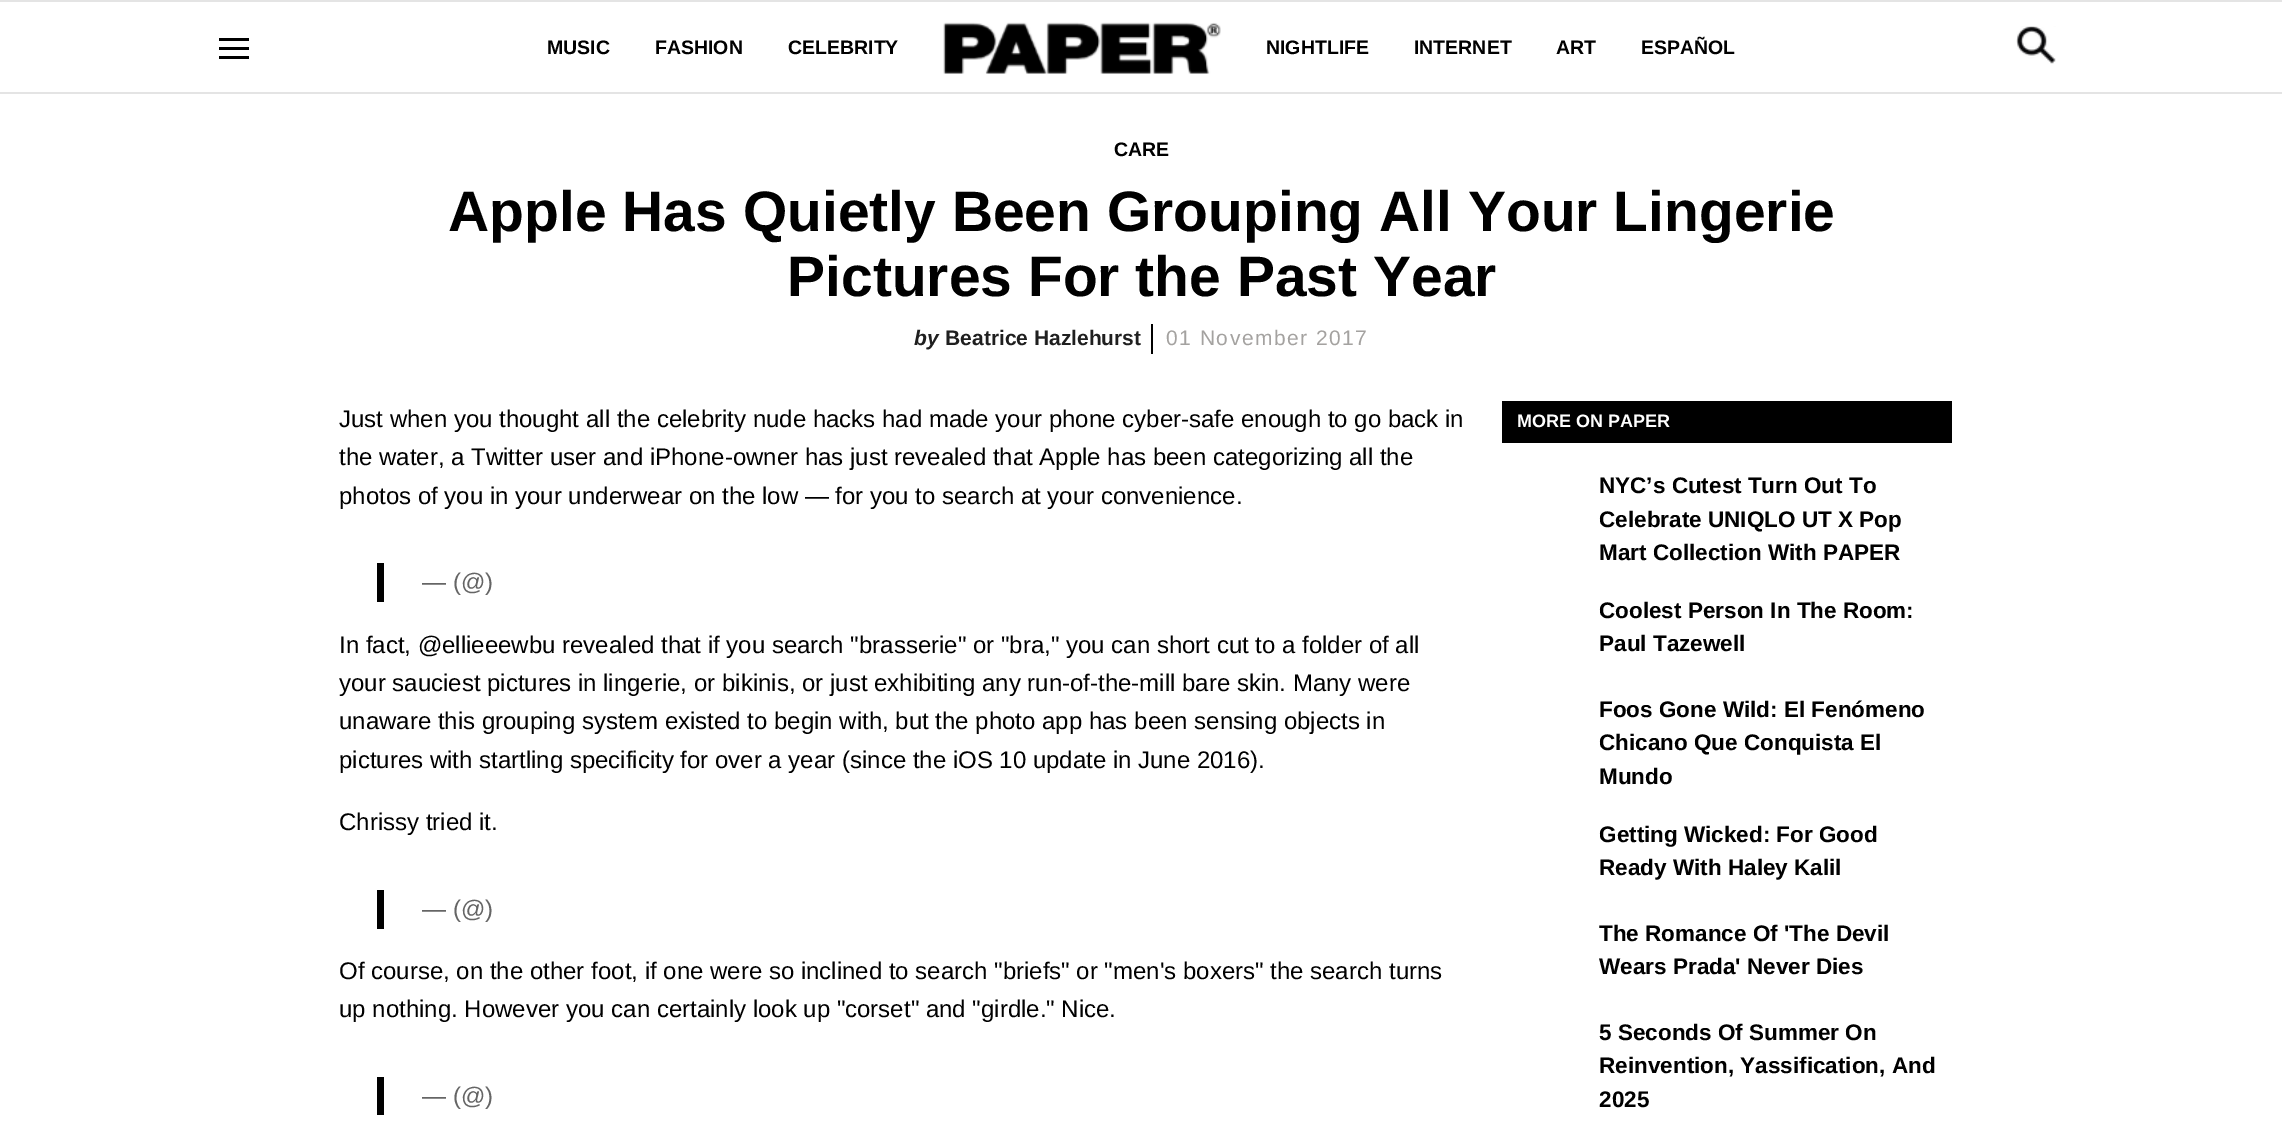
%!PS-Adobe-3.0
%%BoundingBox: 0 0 2282 1145
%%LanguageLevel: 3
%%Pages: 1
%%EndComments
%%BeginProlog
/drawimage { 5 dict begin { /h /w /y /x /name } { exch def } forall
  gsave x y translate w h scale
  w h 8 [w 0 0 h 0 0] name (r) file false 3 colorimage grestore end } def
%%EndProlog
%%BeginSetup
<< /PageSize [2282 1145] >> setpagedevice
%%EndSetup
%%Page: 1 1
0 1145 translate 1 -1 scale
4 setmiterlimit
1 setgray
0 0 2282 1145 rectfill
0.894 setgray
0 0 2282 2 rectfill
0 92 2282 2 rectfill
0 setgray
219 47 30 3 rectfill
219 38 30 3 rectfill
219 56 30 3 rectfill
(images/1.raw) 943 22 278 52 drawimage
(images/2.raw) 2016 26 40 38 drawimage
1151 324 2 30 rectfill
377 563 7 39 rectfill
377 890 7 39 rectfill
377 1077 7 38 rectfill
1502 401 450 42 rectfill
/LiberationSans-Bold [19.5 0 0 -19.5 0 0] selectfont
547 54 moveto (MUSIC) show
655 54 moveto (FASHION) show
788 54 moveto (CELEBRITY) show
1266 54 moveto (NIGHTLIFE) show
1414 54 moveto (INTERNET) show
1556 54 moveto (ART) show
1641 54 moveto (ESPAÑOL) show
1114 156 moveto (CARE) show
/LiberationSans-Bold [57 0 0 -57 0 0] selectfont
448 231 moveto (Apple Has Quietly Been Grouping All Your Lingerie) show
787 296 moveto (Pictures For the Past Year) show
/LiberationSans-BoldItalic [21 0 0 -21 0 0] selectfont
0.122 setgray
914 345 moveto (by) show
/LiberationSans-Bold [21 0 0 -21 0 0] selectfont
945 345 moveto (Beatrice Hazlehurst) show
/LiberationSans-Regular [21 0 0 -21 0 0] selectfont
0.643 0.635 0.627 setrgbcolor
1166 345 moveto 1.5 0 (01 November 2017) ashow
/LiberationSans-Regular [24 0 0 -24 0 0] selectfont
0 setgray
339 427 moveto (Just when you thought all the celebrity nude hacks had made your phone cyber-safe enough to go back in) show
339 465 moveto (the water, a Twitter user and iPhone-owner has just revealed that Apple has been categorizing all the) show
339 504 moveto (photos of you in your underwear on the low — for you to search at your convenience.) show
0.396 setgray
422 590 moveto (— \(@\)) show
0 setgray
339 653 moveto (In fact, @ellieeewbu revealed that if you search "brasserie" or "bra," you can short cut to a folder of all) show
339 691 moveto (your sauciest pictures in lingerie, or bikinis, or just exhibiting any run-of-the-mill bare skin. Many were) show
339 729 moveto (unaware this grouping system existed to begin with, but the photo app has been sensing objects in) show
339 768 moveto (pictures with startling specificity for over a year \(since the iOS 10 update in June 2016\).) show
339 830 moveto (Chrissy tried it.) show
0.396 setgray
422 917 moveto (— \(@\)) show
0 setgray
339 979 moveto (Of course, on the other foot, if one were so inclined to search "briefs" or "men's boxers" the search turns) show
339 1017 moveto (up nothing. However you can certainly look up "corset" and "girdle." Nice.) show
0.396 setgray
422 1104 moveto (— \(@\)) show
/LiberationSans-Bold [18 0 0 -18 0 0] selectfont
1 setgray
1517 427 moveto (MORE ON PAPER) show
/LiberationSans-Bold [22.5 0 0 -22.5 0 0] selectfont
0 setgray
1599 493 moveto (NYC’s Cutest Turn Out To) show
1599 527 moveto (Celebrate UNIQLO UT X Pop) show
1599 560 moveto (Mart Collection With PAPER) show
1599 618 moveto (Coolest Person In The Room:) show
1599 651 moveto (Paul Tazewell) show
1599 717 moveto (Foos Gone Wild: El Fenómeno) show
1599 750 moveto (Chicano Que Conquista El) show
1599 784 moveto (Mundo) show
1599 842 moveto (Getting Wicked: For Good) show
1599 875 moveto (Ready With Haley Kalil) show
1599 941 moveto (The Romance Of 'The Devil) show
1599 974 moveto (Wears Prada' Never Dies) show
1599 1040 moveto (5 Seconds Of Summer On) show
1599 1073 moveto (Reinvention, Yassification, And) show
1599 1107 moveto (2025) show
showpage
%%EOF
